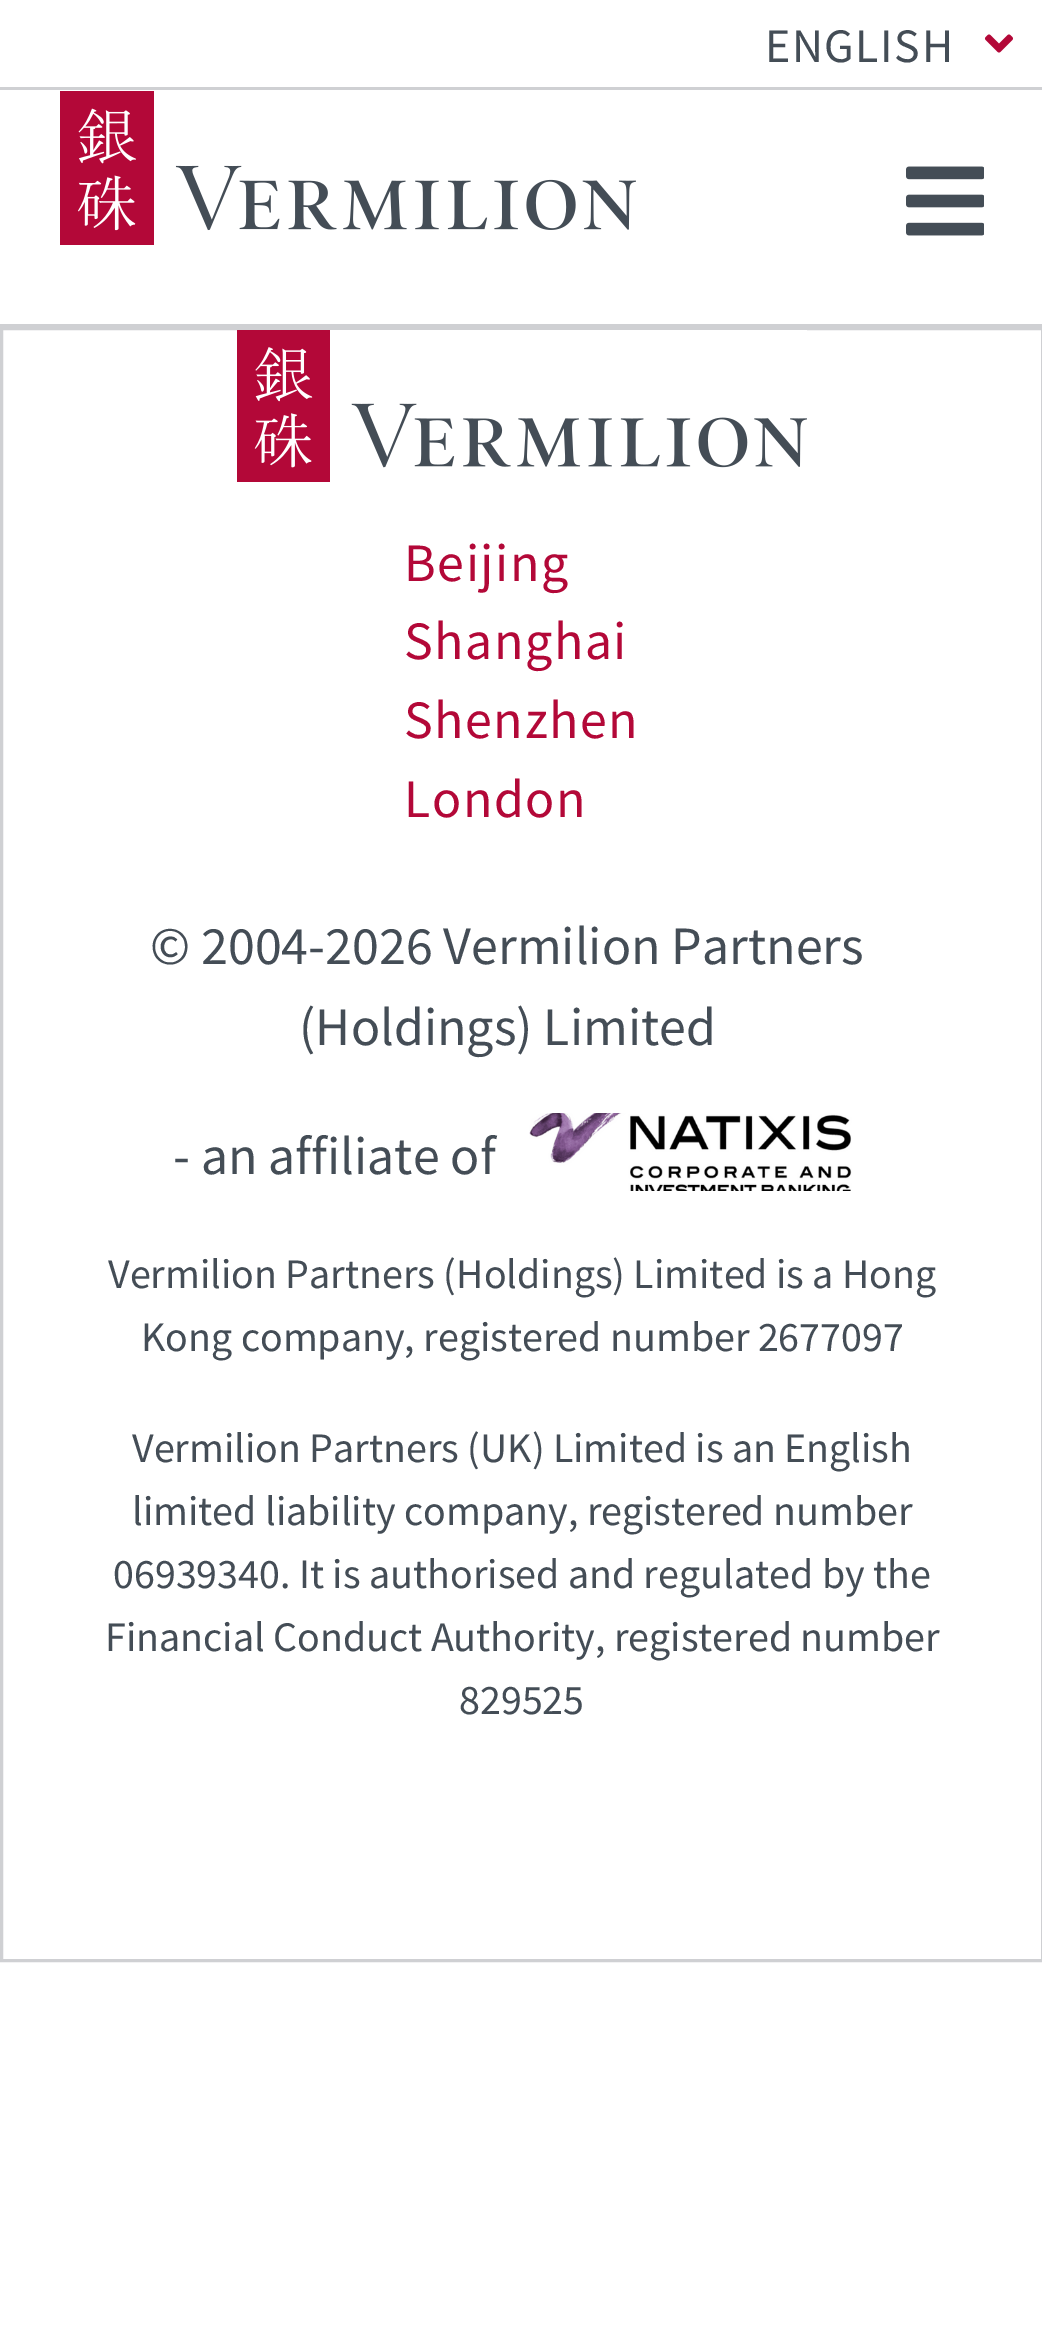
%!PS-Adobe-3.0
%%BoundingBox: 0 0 1042 2326
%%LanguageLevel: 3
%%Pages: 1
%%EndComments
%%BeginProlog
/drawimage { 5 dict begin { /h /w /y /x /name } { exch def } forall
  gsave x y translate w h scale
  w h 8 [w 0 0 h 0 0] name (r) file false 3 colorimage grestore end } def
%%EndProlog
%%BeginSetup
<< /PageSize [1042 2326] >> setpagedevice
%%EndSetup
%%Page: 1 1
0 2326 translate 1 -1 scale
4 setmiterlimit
1 setgray
0 0 1042 2326 rectfill
0.812 0.816 0.827 setrgbcolor
0 87 1042 3 rectfill
(images/1.raw) 984 34 29 19 drawimage
(images/2.raw) 60 91 576 154 drawimage
(images/3.raw) 906 166 78 70 drawimage
0 324 1042 3 rectfill
3 setlinewidth
1.5 328.5 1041 1632 rectstroke
(images/4.raw) 237 330 570 152 drawimage
(images/5.raw) 529 1113 323 78 drawimage
/SourceSansPro-Regular [48 0 0 -48 0 0] selectfont
0.267 0.302 0.337 setrgbcolor
765 62 moveto 1.5 0 (ENGLISH) ashow
/SourceSansPro-Regular [54 0 0 -54 0 0] selectfont
0.702 0.031 0.22 setrgbcolor
404 581 moveto 1.5 0 (Beijing) ashow
404 659 moveto 1.5 0 (Shanghai) ashow
404 738 moveto 1.5 0 (Shenzhen) ashow
404 817 moveto 1.5 0 (London) ashow
0.267 0.302 0.337 setrgbcolor
150 964 moveto (© 2004-2026 Vermilion Partners) show
299 1045 moveto (\(Holdings\) Limited) show
173 1174 moveto (- an affiliate of) show
/SourceSansPro-Regular [42 0 0 -42 0 0] selectfont
108 1288 moveto (Vermilion Partners \(Holdings\) Limited is a Hong) show
141 1351 moveto (Kong company, registered number 2677097) show
132 1462 moveto (Vermilion Partners \(UK\) Limited is an English) show
132 1525 moveto (limited liability company, registered number) show
113 1588 moveto (06939340. It is authorised and regulated by the) show
105 1651 moveto (Financial Conduct Authority, registered number) show
459 1714 moveto (829525) show
showpage
%%EOF
